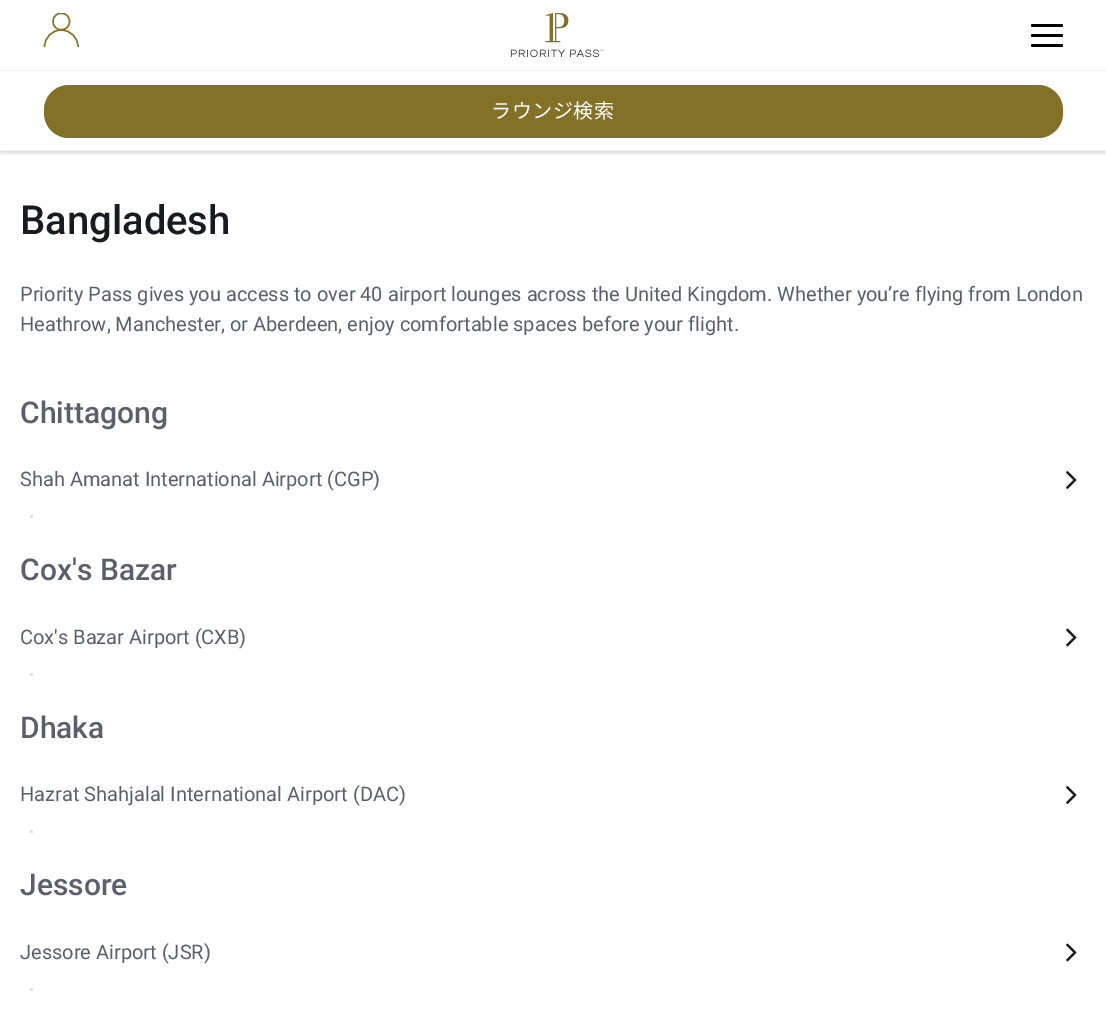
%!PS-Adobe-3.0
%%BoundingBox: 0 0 1106 1020
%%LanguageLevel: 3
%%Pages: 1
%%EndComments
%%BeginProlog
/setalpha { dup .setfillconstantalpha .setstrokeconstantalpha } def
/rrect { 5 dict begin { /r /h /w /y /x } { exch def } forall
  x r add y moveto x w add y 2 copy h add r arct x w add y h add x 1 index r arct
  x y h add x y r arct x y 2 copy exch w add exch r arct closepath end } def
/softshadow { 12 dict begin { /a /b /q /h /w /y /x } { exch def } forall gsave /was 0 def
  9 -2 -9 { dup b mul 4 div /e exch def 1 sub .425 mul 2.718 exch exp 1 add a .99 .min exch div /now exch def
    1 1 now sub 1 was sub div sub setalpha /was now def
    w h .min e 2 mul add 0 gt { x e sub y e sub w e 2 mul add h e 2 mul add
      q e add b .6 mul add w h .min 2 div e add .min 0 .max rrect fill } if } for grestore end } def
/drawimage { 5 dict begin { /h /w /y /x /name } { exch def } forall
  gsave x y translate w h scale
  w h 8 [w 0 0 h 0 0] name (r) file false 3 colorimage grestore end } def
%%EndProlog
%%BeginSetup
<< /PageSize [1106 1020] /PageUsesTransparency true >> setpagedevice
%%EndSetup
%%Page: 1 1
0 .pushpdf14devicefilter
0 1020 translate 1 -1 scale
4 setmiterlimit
1 setgray
0 0 1106 1020 rectfill
gsave
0 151 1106 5 rectclip
0.89 0.882 0.882 setrgbcolor
0 3 1106 151 0 1 1 softshadow
grestore
0.933 setgray
0 150 1106 1 rectfill
0 70 1106 1 rectfill
gsave
44 13 35 35 rectclip
0.51 0.443 0.153 setrgbcolor
1.4 setlinewidth
newpath 69.5 21.5 moveto 69.5 32.5 53 32.5 53 21.5 curveto 53 10.5 69.5 10.5 69.5 21.5 curveto stroke
grestore
0.51 0.443 0.153 setrgbcolor
1.4 setlinewidth
newpath 44.5 47 moveto 44.5 37.5 52 30 61 30 curveto 70.5 30 78 37.5 78 47 curveto stroke
(images/1.raw) 510 13 94 45 drawimage
0 setgray
1031 24 32 3 1.5 rrect fill
1031 34 32 3 1.5 rrect fill
1031 44 32 3 1.5 rrect fill
0.51 0.443 0.153 setrgbcolor
44 85 1019 53 25 rrect fill
(images/2.raw) 1066 471 11 18 drawimage
0.875 0.878 0.898 setrgbcolor
30 515 3 3 rectfill
(images/3.raw) 1066 628 11 19 drawimage
30 673 3 3 rectfill
(images/2.raw) 1066 786 11 18 drawimage
30 830 3 3 rectfill
(images/3.raw) 1066 943 11 19 drawimage
30 988 3 3 rectfill
/NotoSansJP-Regular [20 0 0 -20 0 0] selectfont
1 setgray
491 118 moveto 0.5 0 (ラウンジ検索) ashow
/Roboto-Medium [40 0 0 -40 0 0] selectfont
0.098 0.106 0.129 setrgbcolor
20 234 moveto (Bangladesh) show
/Roboto-Regular [20 0 0 -20 0 0] selectfont
0.357 0.369 0.42 setrgbcolor
20 301 moveto (Priority Pass gives you access to over 40 airport lounges across the United Kingdom. Whether you’re flying from London) show
20 331 moveto (Heathrow, Manchester, or Aberdeen, enjoy comfortable spaces before your flight.) show
/Roboto-Medium [30 0 0 -30 0 0] selectfont
20 423 moveto (Chittagong) show
/Roboto-Regular [20 0 0 -20 0 0] selectfont
20 486 moveto (Shah Amanat International Airport \(CGP\)) show
/Roboto-Medium [30 0 0 -30 0 0] selectfont
20 580 moveto (Cox's Bazar) show
/Roboto-Regular [20 0 0 -20 0 0] selectfont
20 644 moveto (Cox's Bazar Airport \(CXB\)) show
/Roboto-Medium [30 0 0 -30 0 0] selectfont
20 738 moveto (Dhaka) show
/Roboto-Regular [20 0 0 -20 0 0] selectfont
20 801 moveto (Hazrat Shahjalal International Airport \(DAC\)) show
/Roboto-Medium [30 0 0 -30 0 0] selectfont
20 895 moveto (Jessore) show
/Roboto-Regular [20 0 0 -20 0 0] selectfont
20 959 moveto (Jessore Airport \(JSR\)) show
.poppdf14devicefilter showpage
%%EOF
